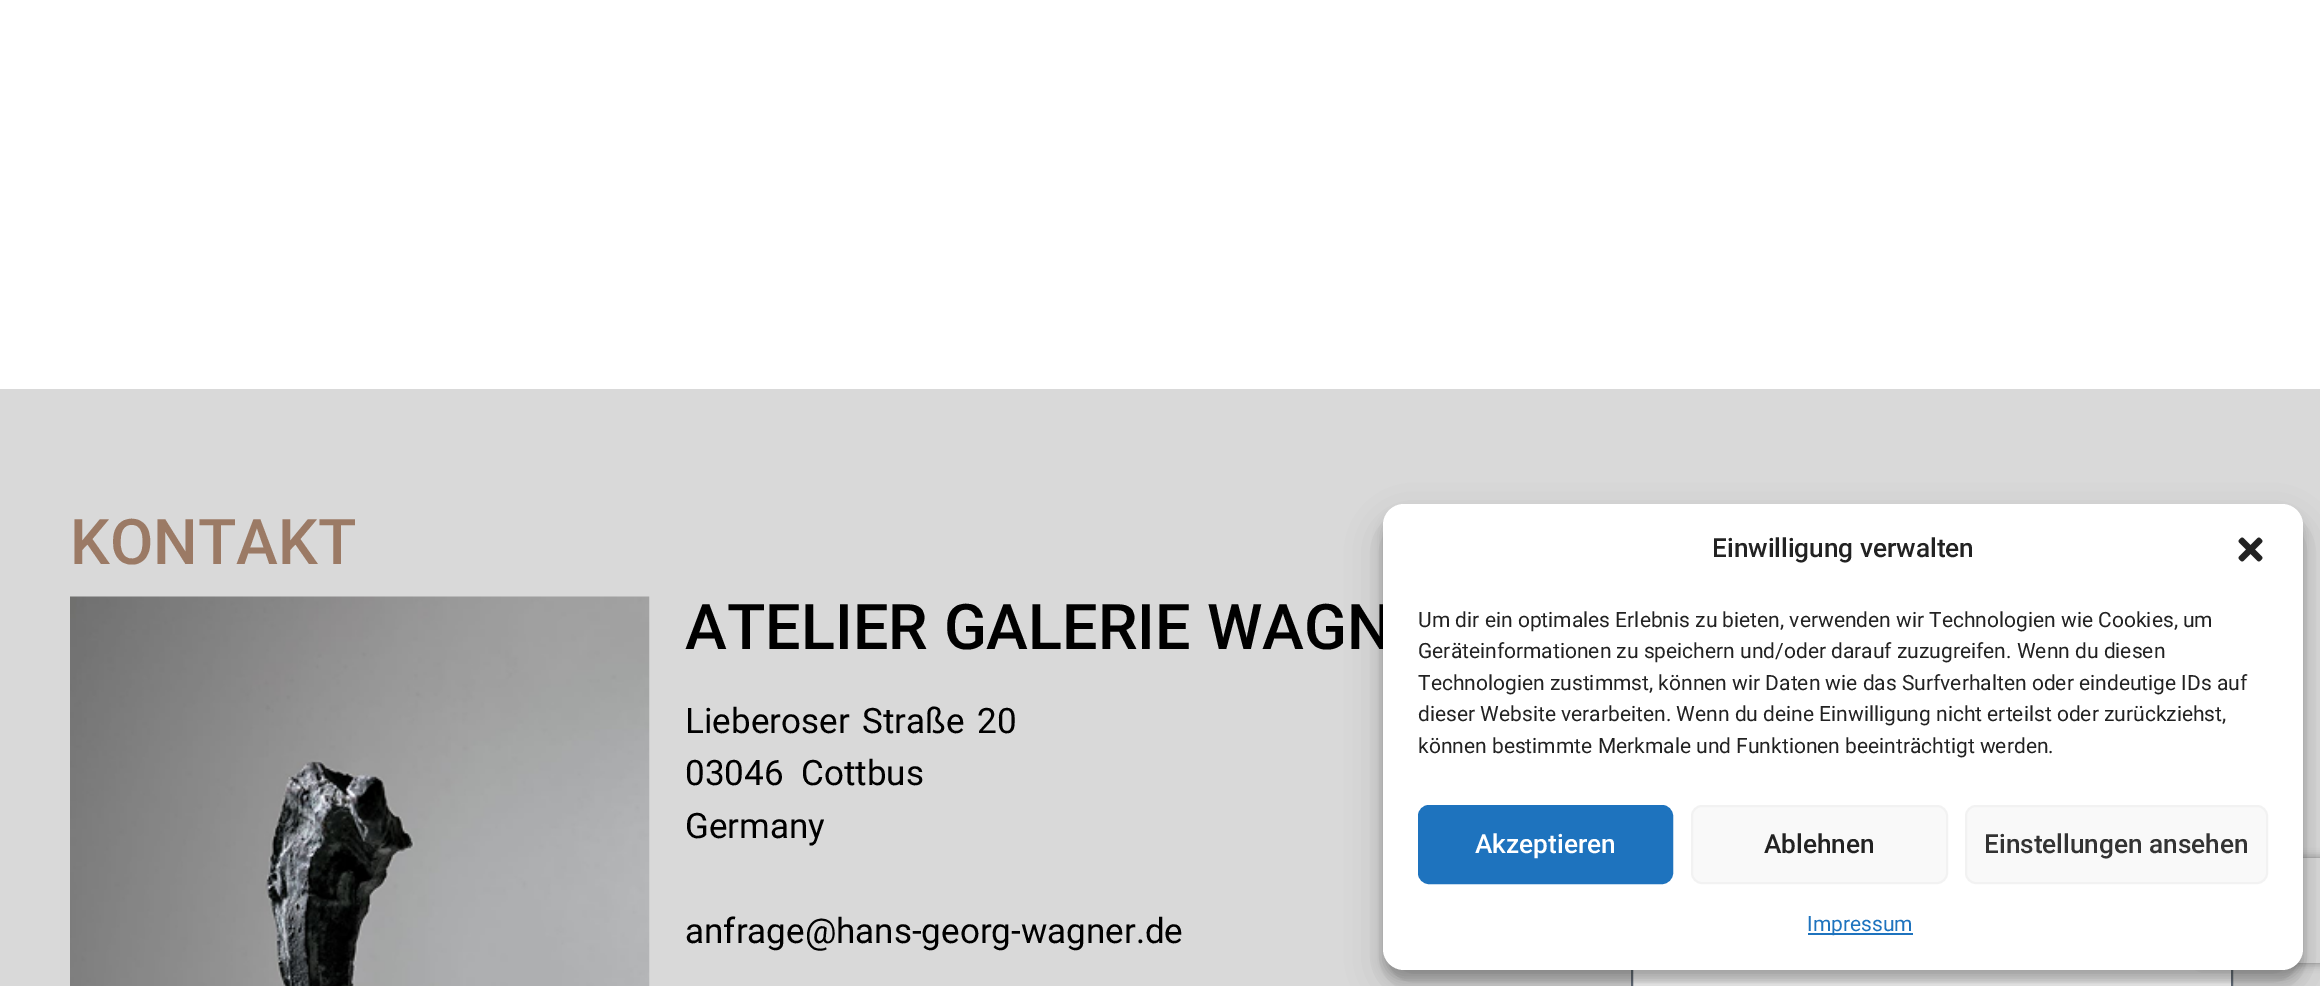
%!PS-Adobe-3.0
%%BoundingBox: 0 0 2320 986
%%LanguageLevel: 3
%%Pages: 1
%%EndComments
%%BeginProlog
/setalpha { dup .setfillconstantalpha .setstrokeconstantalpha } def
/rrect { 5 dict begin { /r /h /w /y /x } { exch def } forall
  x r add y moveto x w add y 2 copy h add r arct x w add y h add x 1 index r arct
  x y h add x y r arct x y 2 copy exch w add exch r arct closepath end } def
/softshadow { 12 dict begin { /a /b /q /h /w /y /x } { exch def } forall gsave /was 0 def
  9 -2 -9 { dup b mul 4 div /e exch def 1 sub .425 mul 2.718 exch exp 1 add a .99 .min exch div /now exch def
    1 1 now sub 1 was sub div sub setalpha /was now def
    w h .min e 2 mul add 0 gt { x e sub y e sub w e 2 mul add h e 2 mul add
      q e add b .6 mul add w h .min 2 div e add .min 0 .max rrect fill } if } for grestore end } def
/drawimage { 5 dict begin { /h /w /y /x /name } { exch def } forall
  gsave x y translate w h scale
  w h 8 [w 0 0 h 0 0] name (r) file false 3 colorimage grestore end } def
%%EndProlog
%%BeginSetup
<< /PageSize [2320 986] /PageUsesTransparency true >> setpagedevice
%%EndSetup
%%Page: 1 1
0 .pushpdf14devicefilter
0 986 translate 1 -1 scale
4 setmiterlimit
1 setgray
0 0 2320 986 rectfill
0.851 setgray
0 389 2320 597 rectfill
(images/1.raw) 70 596 580 390 drawimage
1 setgray
1633 970 598 16 rectfill
0.412 0.447 0.49 setrgbcolor
2 setlinewidth
1632 918 600 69 rectstroke
gsave
newpath 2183 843 moveto 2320 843 lineto 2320 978 lineto 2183 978 lineto closepath 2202 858 moveto 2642 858 lineto 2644 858 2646 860 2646 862 curveto 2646 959 lineto 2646 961 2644 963 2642 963 curveto 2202 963 lineto 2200 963 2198 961 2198 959 curveto 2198 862 lineto 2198 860 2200 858 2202 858 curveto closepath eoclip newpath
0.502 setgray
2198 858 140 105 4 4.5 1 softshadow
grestore
0 setgray
1383 515 920 465 21 5 0.23 softshadow
1383 522 920 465 21 17.5 0.19 softshadow
/Roboto-Medium [63 0 0 -63 0 0] selectfont
0.608 0.478 0.396 setrgbcolor
70 564 moveto (KONTAKT) show
0 setgray
685 649 moveto (ATELIER GALERIE WAGN) show
/Roboto-Regular [35 0 0 -35 0 0] selectfont
685 733 moveto 4 0 32 (Lieberoser Straße 20) widthshow
685 785 moveto 9 0 32 (03046 Cottbus) widthshow
685 838 moveto (Germany) show
685 943 moveto (anfrage@hans-georg-wagner.de) show
1 setgray
1383 504 920 466 21 rrect fill
/Roboto-Medium [26.25 0 0 -26.25 0 0] selectfont
0.133 setgray
1712 557 moveto (Einwilligung verwalten) show
(images/2.raw) 2238 537 25 25 drawimage
/Roboto-Regular [21 0 0 -21 0 0] selectfont
1418 627 moveto (Um dir ein optimales Erlebnis zu bieten, verwenden wir Technologien wie Cookies, um) show
1418 658 moveto (Geräteinformationen zu speichern und/oder darauf zuzugreifen. Wenn du diesen) show
1418 690 moveto (Technologien zustimmst, können wir Daten wie das Surfverhalten oder eindeutige IDs auf) show
1418 721 moveto (dieser Website verarbeiten. Wenn du deine Einwilligung nicht erteilst oder zurückziehst,) show
1418 753 moveto (können bestimmte Merkmale und Funktionen beeinträchtigt werden.) show
0.118 0.451 0.745 setrgbcolor
1419 806 253 77 10 rrect gsave fill grestore
stroke
/Roboto-Medium [26.25 0 0 -26.25 0 0] selectfont
1 setgray
1475 853 moveto (Akzeptieren) show
0.976 setgray
1692 806 255 77 10 rrect gsave fill grestore
0.949 setgray
stroke
0.133 setgray
1764 853 moveto (Ablehnen) show
0.976 setgray
1966 806 301 77 10 rrect gsave fill grestore
0.949 setgray
stroke
0.2 setgray
1984 853 moveto (Einstellungen ansehen) show
0.118 0.451 0.745 setrgbcolor
1808 933 105 2 rectfill
/Roboto-Regular [21 0 0 -21 0 0] selectfont
1807 931 moveto (Impressum) show
.poppdf14devicefilter showpage
%%EOF
